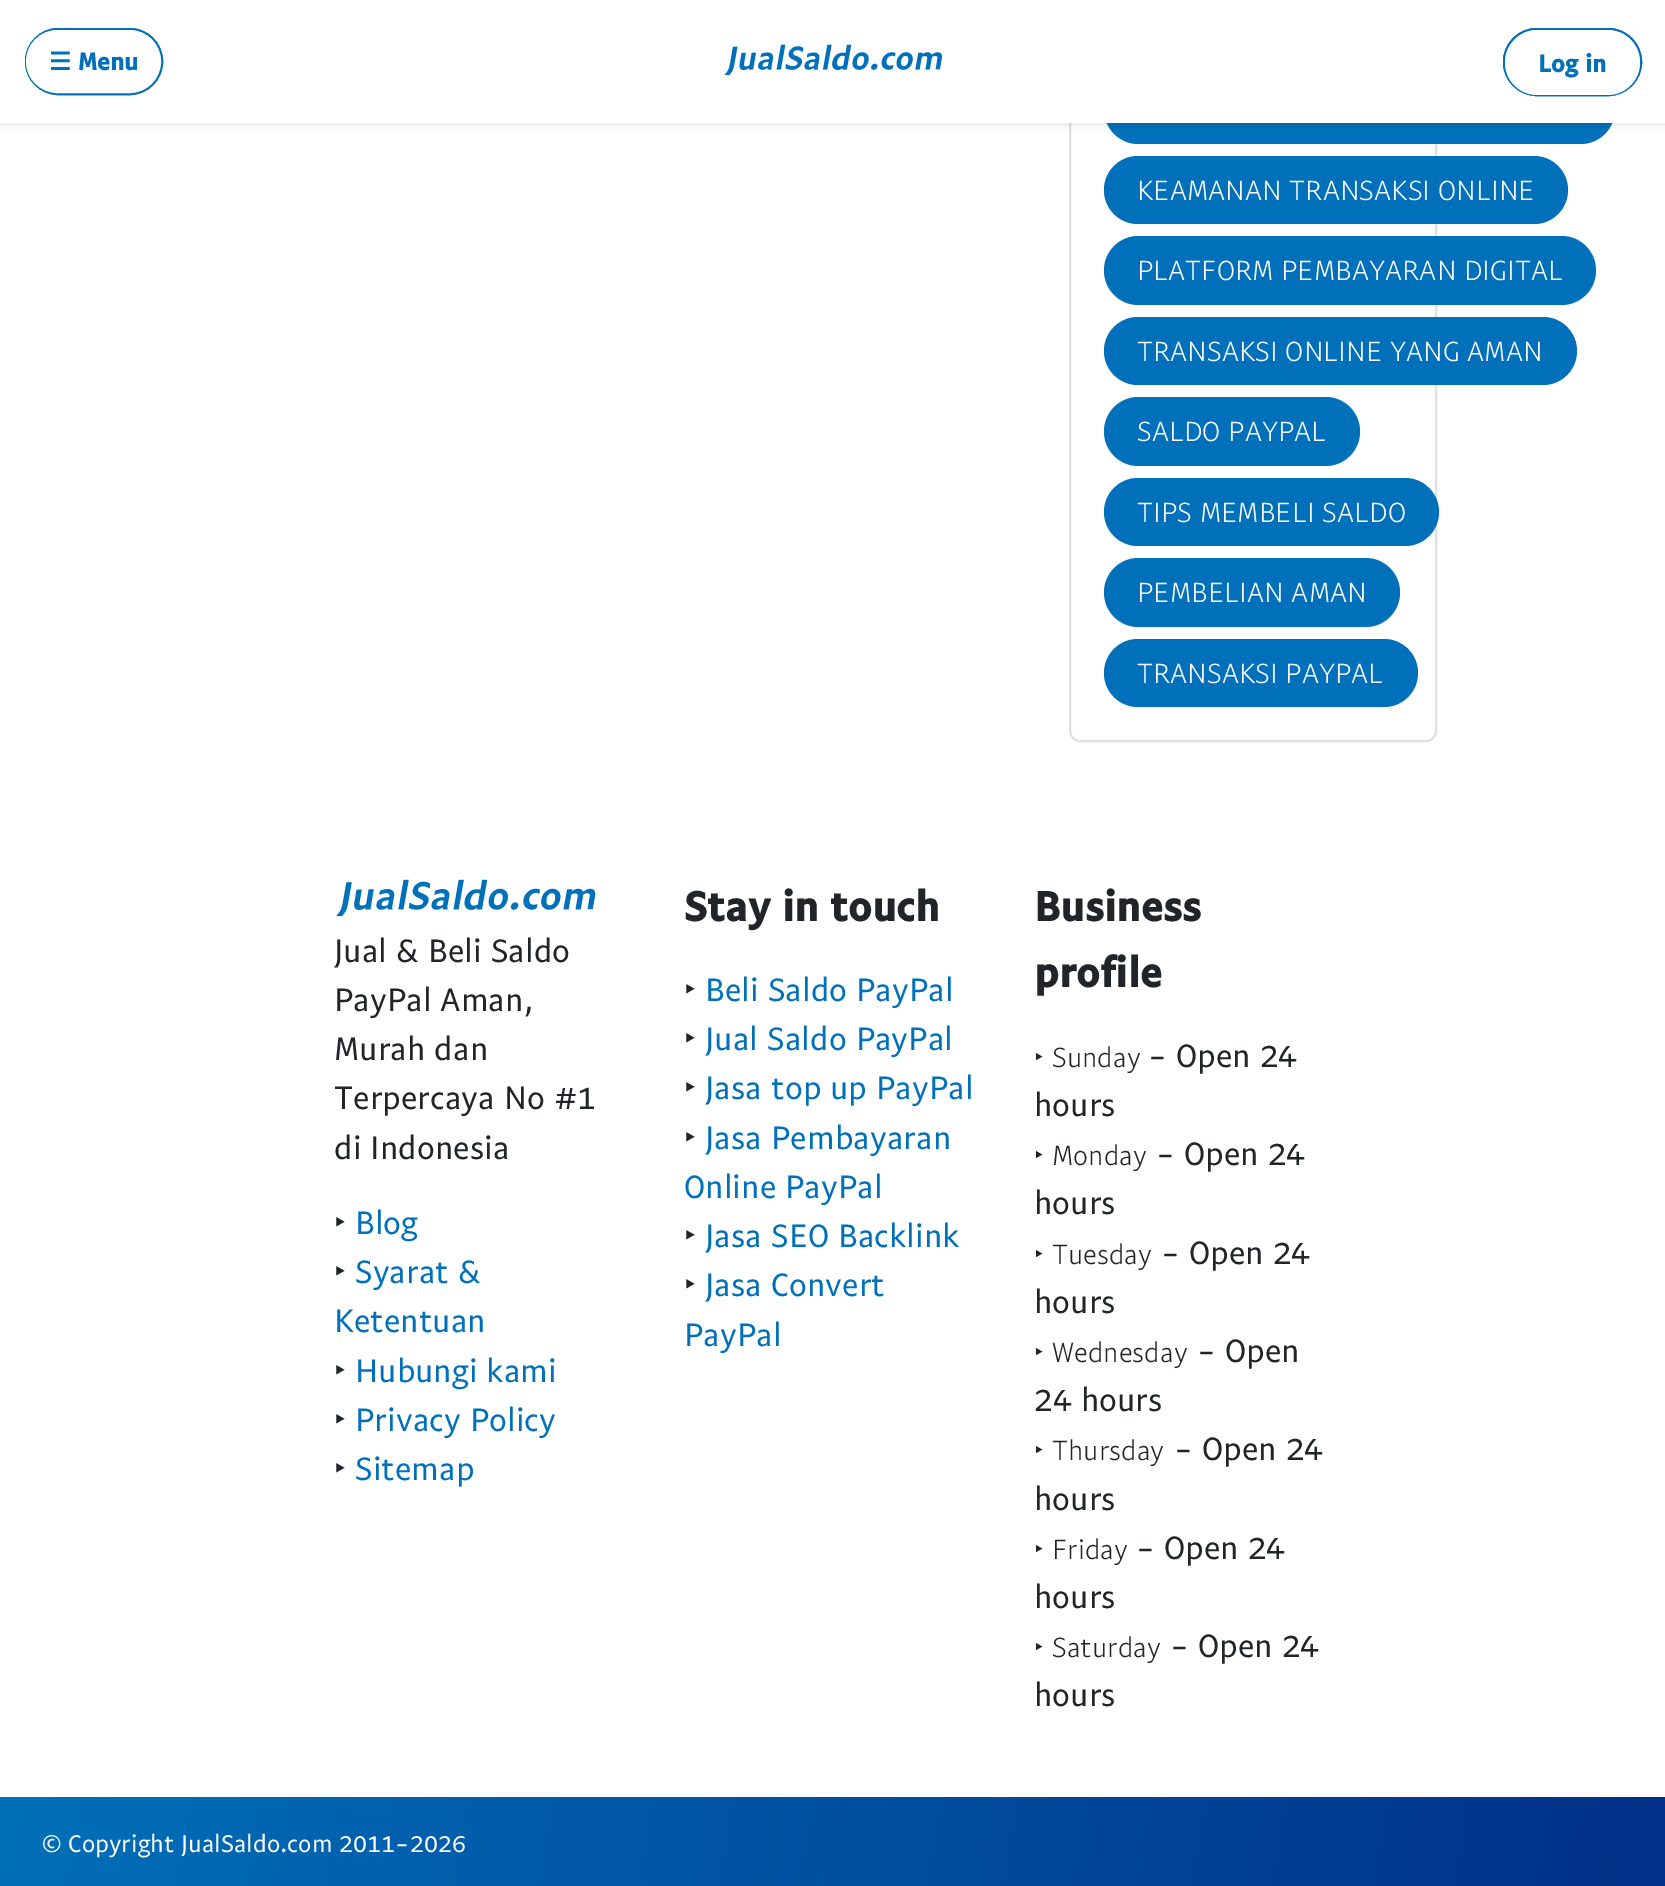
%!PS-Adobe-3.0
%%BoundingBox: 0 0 1665 1886
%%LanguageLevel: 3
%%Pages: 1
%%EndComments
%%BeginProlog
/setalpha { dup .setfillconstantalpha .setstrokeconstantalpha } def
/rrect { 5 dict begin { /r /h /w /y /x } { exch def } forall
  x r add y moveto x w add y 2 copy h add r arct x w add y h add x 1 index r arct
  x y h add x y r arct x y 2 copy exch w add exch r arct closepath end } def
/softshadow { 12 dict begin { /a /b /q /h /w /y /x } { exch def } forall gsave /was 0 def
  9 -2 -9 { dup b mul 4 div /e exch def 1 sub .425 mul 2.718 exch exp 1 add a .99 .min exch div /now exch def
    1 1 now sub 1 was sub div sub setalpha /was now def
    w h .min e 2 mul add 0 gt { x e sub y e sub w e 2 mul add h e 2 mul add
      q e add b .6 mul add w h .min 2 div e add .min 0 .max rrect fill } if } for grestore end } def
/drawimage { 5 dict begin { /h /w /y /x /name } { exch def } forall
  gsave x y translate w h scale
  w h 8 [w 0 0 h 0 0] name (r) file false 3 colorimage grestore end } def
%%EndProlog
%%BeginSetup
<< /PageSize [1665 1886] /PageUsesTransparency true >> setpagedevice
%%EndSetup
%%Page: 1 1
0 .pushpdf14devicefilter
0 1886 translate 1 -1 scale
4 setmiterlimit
1 setgray
0 0 1665 1886 rectfill
0.875 setgray
2 setlinewidth
1070 -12 366 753 10 rrect stroke
0 0.439 0.729 setrgbcolor
1104 75 511 69 34.5 rrect fill
0 setgray
0 4 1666 122 0 3.5 0.07 softshadow
1 setgray
0 0 1665 123 rectfill
0 0.439 0.729 setrgbcolor
26 29 136 65 32.5 rrect stroke
26 29 136 65 32.5 rrect stroke
1 setgray
27 31 133 61 30.5 rrect gsave fill grestore
stroke
(images/1.raw) 724 44 218 32 drawimage
0 0.439 0.729 setrgbcolor
1504 29 137 66 33 rrect stroke
1504 29 137 66 33 rrect stroke
1 setgray
1505 30 135 65 32.5 rrect fill
0 0.439 0.729 setrgbcolor
1104 156 464 68 34 rrect fill
1104 236 492 69 34.5 rrect fill
1104 317 473 68 34 rrect fill
1104 397 256 69 34.5 rrect fill
1104 478 335 68 34 rrect fill
1104 558 296 69 34.5 rrect fill
1104 639 314 68 34 rrect fill
(images/2.raw) 336 879 260 38 drawimage
gsave newpath 0 1797 moveto 1665 1797 lineto 1665 1886 lineto 0 1886 lineto closepath clip newpath
<< /ShadingType 2 /ColorSpace /DeviceRGB /Coords [17 1698 1649 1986] /Extend [true true] /Function << /FunctionType 2 /Domain [0 1] /C0 [0 0.439 0.729] /C1 [0 0.188 0.529] /N 1 >> >> shfill grestore
/DejaVuSans-Bold [24.5 0 0 -24.5 0 0] selectfont
49 70 moveto (☰) show
/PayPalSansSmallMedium-Bold [24.5 0 0 -24.5 0 0] selectfont
78 70 moveto (Menu) show
1538 72 moveto (Log in) show
/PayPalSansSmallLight-Light [28 0 0 -28 0 0] selectfont
1 setgray
1137 200 moveto (KEAMANAN TRANSAKSI ONLINE) show
1137 280 moveto (PLATFORM PEMBAYARAN DIGITAL) show
1137 361 moveto (TRANSAKSI ONLINE YANG AMAN) show
1137 441 moveto (SALDO PAYPAL) show
1137 522 moveto (TIPS MEMBELI SALDO) show
1137 602 moveto (PEMBELIAN AMAN) show
1137 683 moveto (TRANSAKSI PAYPAL) show
/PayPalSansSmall-Regular [32.75 0 0 -32.75 0 0] selectfont
0.129 0.145 0.161 setrgbcolor
334 962 moveto (Jual & Beli Saldo) show
334 1011 moveto (PayPal Aman,) show
334 1060 moveto (Murah dan) show
334 1109 moveto (Terpercaya No #1) show
334 1159 moveto (di Indonesia) show
/NotoSans-Regular [32.75 0 0 -32.75 0 0] selectfont
334 1234 moveto (‣) show
/PayPalSansSmall-Regular [32.75 0 0 -32.75 0 0] selectfont
0 0.439 0.729 setrgbcolor
355 1234 moveto (Blog) show
/NotoSans-Regular [32.75 0 0 -32.75 0 0] selectfont
0.129 0.145 0.161 setrgbcolor
334 1283 moveto (‣) show
/PayPalSansSmall-Regular [32.75 0 0 -32.75 0 0] selectfont
0 0.439 0.729 setrgbcolor
355 1283 moveto (Syarat &) show
334 1332 moveto (Ketentuan) show
/NotoSans-Regular [32.75 0 0 -32.75 0 0] selectfont
0.129 0.145 0.161 setrgbcolor
334 1382 moveto (‣) show
/PayPalSansSmall-Regular [32.75 0 0 -32.75 0 0] selectfont
0 0.439 0.729 setrgbcolor
355 1382 moveto (Hubungi kami) show
/NotoSans-Regular [32.75 0 0 -32.75 0 0] selectfont
0.129 0.145 0.161 setrgbcolor
334 1431 moveto (‣) show
/PayPalSansSmall-Regular [32.75 0 0 -32.75 0 0] selectfont
0 0.439 0.729 setrgbcolor
355 1431 moveto (Privacy Policy) show
/NotoSans-Regular [32.75 0 0 -32.75 0 0] selectfont
0.129 0.145 0.161 setrgbcolor
334 1480 moveto (‣) show
/PayPalSansSmall-Regular [32.75 0 0 -32.75 0 0] selectfont
0 0.439 0.729 setrgbcolor
355 1480 moveto (Sitemap) show
/PayPalSansSmallMedium-Bold [42 0 0 -42 0 0] selectfont
0.129 0.145 0.161 setrgbcolor
684 921 moveto (Stay in touch) show
/NotoSans-Regular [32.75 0 0 -32.75 0 0] selectfont
684 1001 moveto (‣) show
/PayPalSansSmall-Regular [32.75 0 0 -32.75 0 0] selectfont
0 0.439 0.729 setrgbcolor
705 1001 moveto (Beli Saldo PayPal) show
/NotoSans-Regular [32.75 0 0 -32.75 0 0] selectfont
0.129 0.145 0.161 setrgbcolor
684 1050 moveto (‣) show
/PayPalSansSmall-Regular [32.75 0 0 -32.75 0 0] selectfont
0 0.439 0.729 setrgbcolor
705 1050 moveto (Jual Saldo PayPal) show
/NotoSans-Regular [32.75 0 0 -32.75 0 0] selectfont
0.129 0.145 0.161 setrgbcolor
684 1099 moveto (‣) show
/PayPalSansSmall-Regular [32.75 0 0 -32.75 0 0] selectfont
0 0.439 0.729 setrgbcolor
705 1099 moveto (Jasa top up PayPal) show
/NotoSans-Regular [32.75 0 0 -32.75 0 0] selectfont
0.129 0.145 0.161 setrgbcolor
684 1149 moveto (‣) show
/PayPalSansSmall-Regular [32.75 0 0 -32.75 0 0] selectfont
0 0.439 0.729 setrgbcolor
705 1149 moveto (Jasa Pembayaran) show
684 1198 moveto (Online PayPal) show
/NotoSans-Regular [32.75 0 0 -32.75 0 0] selectfont
0.129 0.145 0.161 setrgbcolor
684 1247 moveto (‣) show
/PayPalSansSmall-Regular [32.75 0 0 -32.75 0 0] selectfont
0 0.439 0.729 setrgbcolor
705 1247 moveto (Jasa SEO Backlink) show
/NotoSans-Regular [32.75 0 0 -32.75 0 0] selectfont
0.129 0.145 0.161 setrgbcolor
684 1296 moveto (‣) show
/PayPalSansSmall-Regular [32.75 0 0 -32.75 0 0] selectfont
0 0.439 0.729 setrgbcolor
705 1296 moveto (Jasa Convert) show
684 1346 moveto (PayPal) show
/PayPalSansSmallMedium-Bold [42 0 0 -42 0 0] selectfont
0.129 0.145 0.161 setrgbcolor
1034 921 moveto (Business) show
1034 987 moveto (profile) show
/NotoSans-Light [28 0 0 -28 0 0] selectfont
1034 1067 moveto (‣) show
/PayPalSansSmallLight-Light [28 0 0 -28 0 0] selectfont
1052 1067 moveto (Sunday) show
/PayPalSansSmall-Regular [32.75 0 0 -32.75 0 0] selectfont
1148 1067 moveto (- Open 24) show
1034 1116 moveto (hours) show
/NotoSans-Light [28 0 0 -28 0 0] selectfont
1034 1165 moveto (‣) show
/PayPalSansSmallLight-Light [28 0 0 -28 0 0] selectfont
1052 1165 moveto (Monday) show
/PayPalSansSmall-Regular [32.75 0 0 -32.75 0 0] selectfont
1156 1165 moveto (- Open 24) show
1034 1214 moveto (hours) show
/NotoSans-Light [28 0 0 -28 0 0] selectfont
1034 1264 moveto (‣) show
/PayPalSansSmallLight-Light [28 0 0 -28 0 0] selectfont
1052 1264 moveto (Tuesday) show
/PayPalSansSmall-Regular [32.75 0 0 -32.75 0 0] selectfont
1161 1264 moveto (- Open 24) show
1034 1313 moveto (hours) show
/NotoSans-Light [28 0 0 -28 0 0] selectfont
1034 1362 moveto (‣) show
/PayPalSansSmallLight-Light [28 0 0 -28 0 0] selectfont
1052 1362 moveto (Wednesday) show
/PayPalSansSmall-Regular [32.75 0 0 -32.75 0 0] selectfont
1197 1362 moveto (- Open) show
1034 1411 moveto (24 hours) show
/NotoSans-Light [28 0 0 -28 0 0] selectfont
1034 1460 moveto (‣) show
/PayPalSansSmallLight-Light [28 0 0 -28 0 0] selectfont
1052 1460 moveto (Thursday) show
/PayPalSansSmall-Regular [32.75 0 0 -32.75 0 0] selectfont
1174 1460 moveto (- Open 24) show
1034 1510 moveto (hours) show
/NotoSans-Light [28 0 0 -28 0 0] selectfont
1034 1559 moveto (‣) show
/PayPalSansSmallLight-Light [28 0 0 -28 0 0] selectfont
1052 1559 moveto (Friday) show
/PayPalSansSmall-Regular [32.75 0 0 -32.75 0 0] selectfont
1136 1559 moveto (- Open 24) show
1034 1608 moveto (hours) show
/NotoSans-Light [28 0 0 -28 0 0] selectfont
1034 1657 moveto (‣) show
/PayPalSansSmallLight-Light [28 0 0 -28 0 0] selectfont
1052 1657 moveto (Saturday) show
/PayPalSansSmall-Regular [32.75 0 0 -32.75 0 0] selectfont
1170 1657 moveto (- Open 24) show
1034 1706 moveto (hours) show
/PayPalSansSmall-Regular [24.5 0 0 -24.5 0 0] selectfont
1 setgray
42 1852 moveto (© Copyright JualSaldo.com 2011-2026) show
.poppdf14devicefilter showpage
%%EOF
